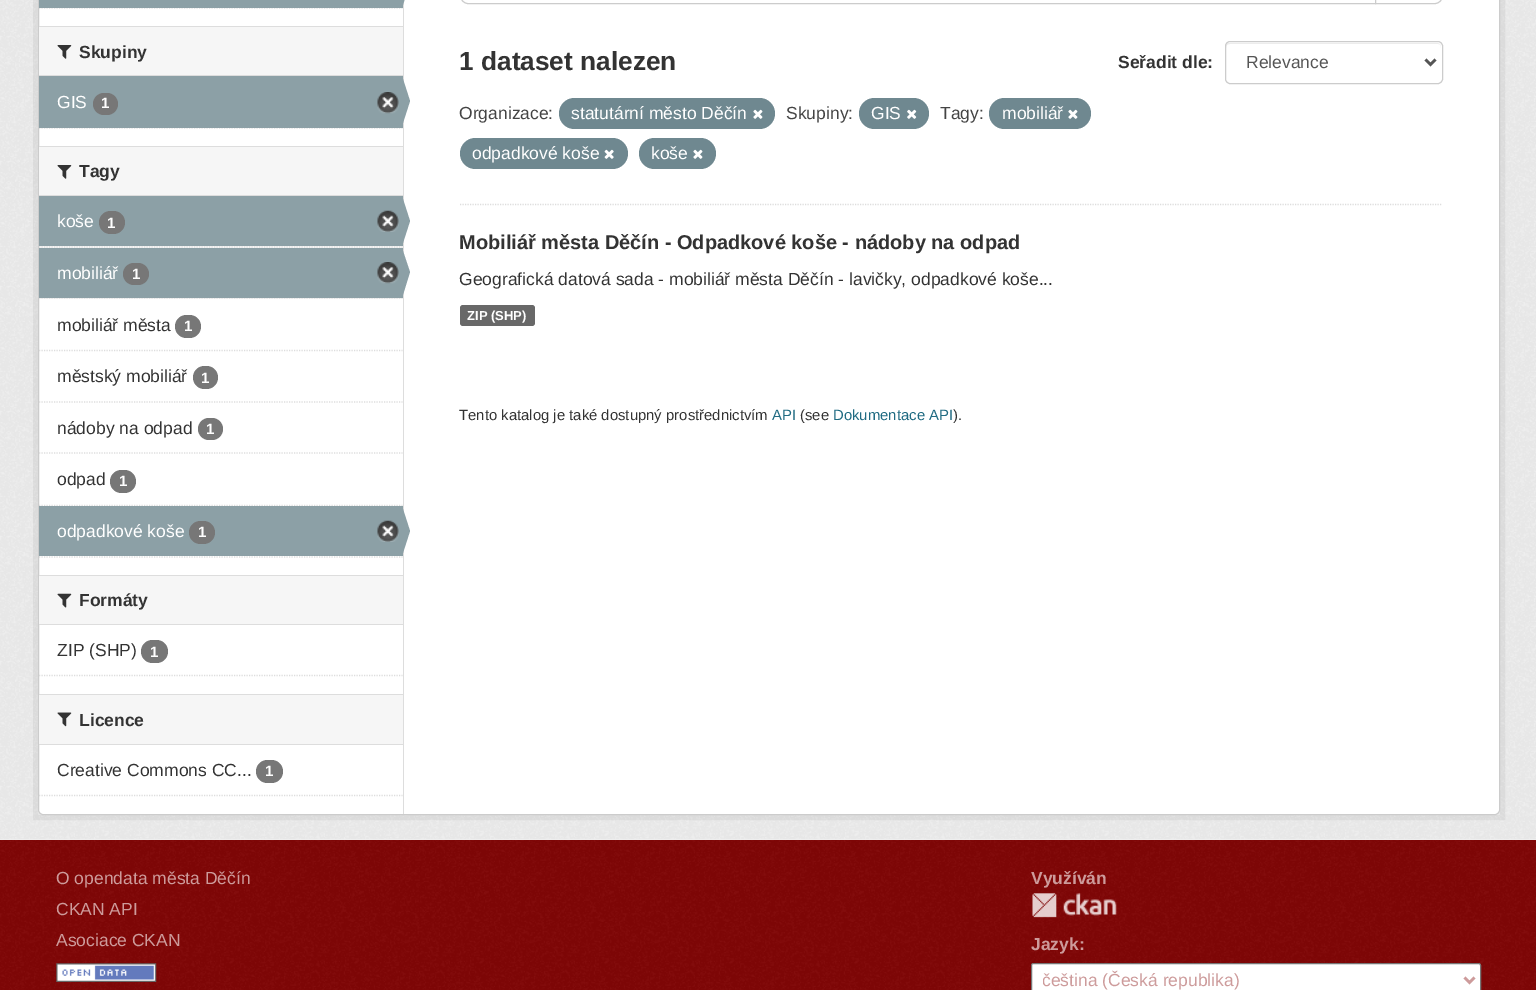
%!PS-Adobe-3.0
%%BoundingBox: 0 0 1536 990
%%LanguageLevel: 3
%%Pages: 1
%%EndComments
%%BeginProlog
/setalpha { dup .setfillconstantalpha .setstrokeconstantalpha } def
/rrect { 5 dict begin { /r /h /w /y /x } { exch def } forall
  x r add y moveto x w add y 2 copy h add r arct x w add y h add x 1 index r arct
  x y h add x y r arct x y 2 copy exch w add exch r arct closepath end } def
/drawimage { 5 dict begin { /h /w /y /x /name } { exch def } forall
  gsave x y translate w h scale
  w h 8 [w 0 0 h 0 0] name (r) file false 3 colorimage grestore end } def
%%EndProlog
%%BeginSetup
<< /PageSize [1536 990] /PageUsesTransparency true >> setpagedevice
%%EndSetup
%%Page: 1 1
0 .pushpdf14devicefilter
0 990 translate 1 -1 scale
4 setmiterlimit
0.506 0.024 0.024 setrgbcolor
0 0 1536 990 rectfill
0.933 setgray
0 0 1536 840 rectfill
(images/1.raw) 0 0 1536 839 drawimage
0.05 setalpha
0 setgray
5 setlinewidth
35.5 -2.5 1467 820 rectstroke
1 setalpha
1 setgray
38.5 -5.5 1461 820 4.5 rrect gsave fill grestore
0.8 setgray
1 setlinewidth
stroke
0.867 setgray
1.2 setlinewidth
[1.25 1.25] 0 setdash
newpath 39 8 moveto 402.5 8 lineto stroke
0.549 0.627 0.651 setrgbcolor
39 0 364 8 rectfill
0.867 setgray
403 0 1 814 rectfill
0.549 0.627 0.651 setrgbcolor
newpath 402 8 moveto 402 -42 lineto 410 -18 lineto closepath fill
0.965 setgray
39 27 364 48 rectfill
0.867 setgray
39 26 364 1 rectfill
39 75 364 1 rectfill
(images/2.raw) 57 45 15 14 drawimage
newpath 39 128 moveto 402.5 128 lineto stroke
0.549 0.627 0.651 setrgbcolor
39 76 364 52 rectfill
0.467 setgray
93 93 25 22 11 rrect fill
(images/3.raw) 377 92 22 22 drawimage
0.549 0.627 0.651 setrgbcolor
newpath 402 126 moveto 402 76 lineto 410 101 lineto closepath fill
0.965 setgray
39 147 364 48 rectfill
0.867 setgray
39 146 364 1 rectfill
39 195 364 1 rectfill
(images/2.raw) 57 165 15 14 drawimage
0.965 setgray
39 246 364 2 rectfill
0.867 setgray
newpath 39 247 moveto 402.5 247 lineto stroke
0.549 0.627 0.651 setrgbcolor
39 196 364 50 rectfill
0.467 setgray
99 211 26 23 11.5 rrect fill
(images/4.raw) 377 210 22 22 drawimage
0.549 0.627 0.651 setrgbcolor
newpath 402 246 moveto 402 196 lineto 410 221 lineto closepath fill
0.965 setgray
39 298 364 1 rectfill
0.867 setgray
newpath 39 298 moveto 402.5 298 lineto stroke
0.549 0.627 0.651 setrgbcolor
39 248 364 50 rectfill
0.467 setgray
123 263 26 22 11 rrect fill
(images/3.raw) 377 262 22 22 drawimage
0.549 0.627 0.651 setrgbcolor
newpath 402 298 moveto 402 248 lineto 410 272 lineto closepath fill
0.867 setgray
newpath 39 350.5 moveto 402.5 350.5 lineto stroke
0.467 setgray
175 315 26 23 11.5 rrect fill
0.867 setgray
newpath 39 402 moveto 402.5 402 lineto stroke
0.467 setgray
193 366 25 23 11.5 rrect fill
0.867 setgray
newpath 39 453 moveto 402.5 453 lineto stroke
0.467 setgray
198 418 25 22 11 rrect fill
0.867 setgray
newpath 39 505.5 moveto 402.5 505.5 lineto stroke
0.467 setgray
110 470 26 23 11.5 rrect fill
0.549 0.627 0.651 setrgbcolor
39 506 364 50 rectfill
0.467 setgray
189 521 26 23 11.5 rrect fill
(images/4.raw) 377 520 22 22 drawimage
0.549 0.627 0.651 setrgbcolor
newpath 402 556 moveto 402 506 lineto 410 531 lineto closepath fill
0.867 setgray
newpath 39 557 moveto 402.5 557 lineto stroke
0.965 setgray
39 576 364 48 rectfill
0.867 setgray
39 575 364 1 rectfill
39 624 364 1 rectfill
(images/5.raw) 57 593 15 15 drawimage
0.467 setgray
141 640 27 23 11.5 rrect fill
0.867 setgray
newpath 39 675.5 moveto 402.5 675.5 lineto stroke
0.965 setgray
39 695 364 49 rectfill
0.867 setgray
39 694 364 1 rectfill
39 744 364 1 rectfill
(images/6.raw) 57 712 15 15 drawimage
0.467 setgray
256 760 27 23 11.5 rrect fill
0.867 setgray
newpath 39 795.5 moveto 402.5 795.5 lineto stroke
newpath 460 204.5 moveto 1442.5 204.5 lineto stroke
0.8 setgray
1 setlinewidth
[] 0 setdash
newpath 468 -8.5 moveto 1375.5 -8.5 lineto 1375.5 3.5 lineto 468 3.5 lineto 464 3.5 460.5 0 460.5 -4 curveto 460.5 -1 lineto 460.5 -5 464 -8.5 468 -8.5 curveto closepath stroke
1 setgray
newpath 1375.5 -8.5 moveto 1435 -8.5 lineto 1439 -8.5 1442.5 -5 1442.5 -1 curveto 1442.5 -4 lineto 1442.5 0 1439 3.5 1435 3.5 curveto 1375.5 3.5 lineto closepath gsave fill grestore
0.8 setgray
stroke
0.925 setgray
newpath 1230 44 moveto 1438 44 lineto 1440 44 1441 45 1441 48 curveto 1441 45 1440 43 1437 43 curveto 1228 43 lineto 1226 44 1226 46 1226 48 curveto 1226 45 1228 44 1230 44 curveto closepath fill
0.8 setgray
1225.5 41.5 217 42 4.5 rrect stroke
0.333 setgray
2.5 setlinewidth
newpath 1425.5 59.5 moveto 1430.5 64.5 lineto 1435.5 59.5 lineto stroke
0.435 0.533 0.565 setrgbcolor
559 98 216 31 15.5 rrect fill
(images/7.raw) 753 109 10 10 drawimage
859 98 70 31 15.5 rrect fill
(images/8.raw) 907 109 10 10 drawimage
989 98 102 31 15.5 rrect fill
(images/7.raw) 1068 109 10 10 drawimage
460 138 168 31 15.5 rrect fill
(images/9.raw) 604 149 10 10 drawimage
639 138 77 31 15.5 rrect fill
(images/7.raw) 693 149 10 10 drawimage
0.408 setgray
460 305 75 21 3 rrect fill
(images/10.raw) 0 840 1536 150 drawimage
(images/11.raw) 56 963 101 19 drawimage
(images/12.raw) 1032 893 85 25 drawimage
1 setgray
1031.5 963.5 449 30 2 rrect gsave fill grestore
0.463 setgray
1 setlinewidth
stroke
0.804 0.608 0.608 setrgbcolor
2.5 setlinewidth
newpath 1464.5 977.5 moveto 1469.5 982.5 lineto 1474.5 977.5 lineto stroke
/LiberationSans-Bold [17.5 0 0 -17.5 0 0] selectfont
0.2 setgray
79 58 moveto (Skupiny) show
/LiberationSans-Regular [17.5 0 0 -17.5 0 0] selectfont
1 setgray
57 108 moveto (GIS) show
/LiberationSans-Bold [15 0 0 -15 0 0] selectfont
101 108 moveto (1) show
/LiberationSans-Bold [17.5 0 0 -17.5 0 0] selectfont
0.2 setgray
79 177 moveto (Tagy) show
/LiberationSans-Regular [17.5 0 0 -17.5 0 0] selectfont
1 setgray
57 227 moveto (koše) show
/LiberationSans-Bold [15 0 0 -15 0 0] selectfont
107 228 moveto (1) show
/LiberationSans-Regular [17.5 0 0 -17.5 0 0] selectfont
57 279 moveto (mobiliář) show
/LiberationSans-Bold [15 0 0 -15 0 0] selectfont
132 279 moveto (1) show
/LiberationSans-Regular [17.5 0 0 -17.5 0 0] selectfont
0.2 setgray
57 331 moveto (mobiliář města) show
/LiberationSans-Bold [15 0 0 -15 0 0] selectfont
1 setgray
184 331 moveto (1) show
/LiberationSans-Regular [17.5 0 0 -17.5 0 0] selectfont
0.2 setgray
57 382 moveto (městský mobiliář) show
/LiberationSans-Bold [15 0 0 -15 0 0] selectfont
1 setgray
201 383 moveto (1) show
/LiberationSans-Regular [17.5 0 0 -17.5 0 0] selectfont
0.2 setgray
57 434 moveto (nádoby na odpad) show
/LiberationSans-Bold [15 0 0 -15 0 0] selectfont
1 setgray
206 434 moveto (1) show
/LiberationSans-Regular [17.5 0 0 -17.5 0 0] selectfont
0.2 setgray
57 485 moveto (odpad) show
/LiberationSans-Bold [15 0 0 -15 0 0] selectfont
1 setgray
119 486 moveto (1) show
/LiberationSans-Regular [17.5 0 0 -17.5 0 0] selectfont
57 537 moveto (odpadkové koše) show
/LiberationSans-Bold [15 0 0 -15 0 0] selectfont
198 537 moveto (1) show
/LiberationSans-Bold [17.5 0 0 -17.5 0 0] selectfont
0.2 setgray
79 606 moveto (Formáty) show
/LiberationSans-Regular [17.5 0 0 -17.5 0 0] selectfont
57 656 moveto (ZIP \(SHP\)) show
/LiberationSans-Bold [15 0 0 -15 0 0] selectfont
1 setgray
150 657 moveto (1) show
/LiberationSans-Bold [17.5 0 0 -17.5 0 0] selectfont
0.2 setgray
79 726 moveto (Licence) show
/LiberationSans-Regular [17.5 0 0 -17.5 0 0] selectfont
57 776 moveto (Creative Commons CC...) show
/LiberationSans-Bold [15 0 0 -15 0 0] selectfont
1 setgray
265 776 moveto (1) show
/LiberationSans-Bold [26.25 0 0 -26.25 0 0] selectfont
0.2 setgray
459 70 moveto (1 dataset nalezen) show
/LiberationSans-Bold [17.5 0 0 -17.5 0 0] selectfont
1118 68 moveto (Seřadit dle:) show
/LiberationSans-Regular [17.5 0 0 -17.5 0 0] selectfont
0.333 setgray
1246 68 moveto (Relevance) show
0.267 setgray
459 119 moveto (Organizace:) show
1 setgray
571 119 moveto (statutární město Děčín) show
0.267 setgray
786 119 moveto (Skupiny:) show
1 setgray
871 119 moveto (GIS) show
0.267 setgray
940 119 moveto (Tagy:) show
1 setgray
1002 119 moveto (mobiliář) show
472 159 moveto (odpadkové koše) show
651 159 moveto (koše) show
/LiberationSans-Bold [20 0 0 -20 0 0] selectfont
0.2 setgray
459 249 moveto (Mobiliář města Děčín - Odpadkové koše - nádoby na odpad) show
/LiberationSans-Regular [17.5 0 0 -17.5 0 0] selectfont
459 285 moveto (Geografická datová sada - mobiliář města Děčín - lavičky, odpadkové koše...) show
/LiberationSans-Bold [13 0 0 -13 0 0] selectfont
1 setgray
467 320 moveto (ZIP \(SHP\)) show
/LiberationSans-Regular [14.9 0 0 -14.9 0 0] selectfont
0.2 setgray
459 420 moveto (Tento katalog je také dostupný prostřednictvím) show
0.125 0.42 0.51 setrgbcolor
772 420 moveto (API) show
0.2 setgray
800 420 moveto (\(see) show
0.125 0.42 0.51 setrgbcolor
833 420 moveto (Dokumentace API) show
0.2 setgray
953 420 moveto (\).) show
/LiberationSans-Regular [17.5 0 0 -17.5 0 0] selectfont
0.804 0.608 0.608 setrgbcolor
56 884 moveto (O opendata města Děčín) show
56 915 moveto (CKAN API) show
56 946 moveto (Asociace CKAN) show
/LiberationSans-Bold [17.5 0 0 -17.5 0 0] selectfont
1031 884 moveto (Využíván) show
1031 950 moveto (Jazyk:) show
gsave
1043 969 412 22 rectclip
/LiberationSans-Regular [17.5 0 0 -17.5 0 0] selectfont
1042 986 moveto (čeština \(Česká republika\)) show
grestore
.poppdf14devicefilter showpage
%%EOF
